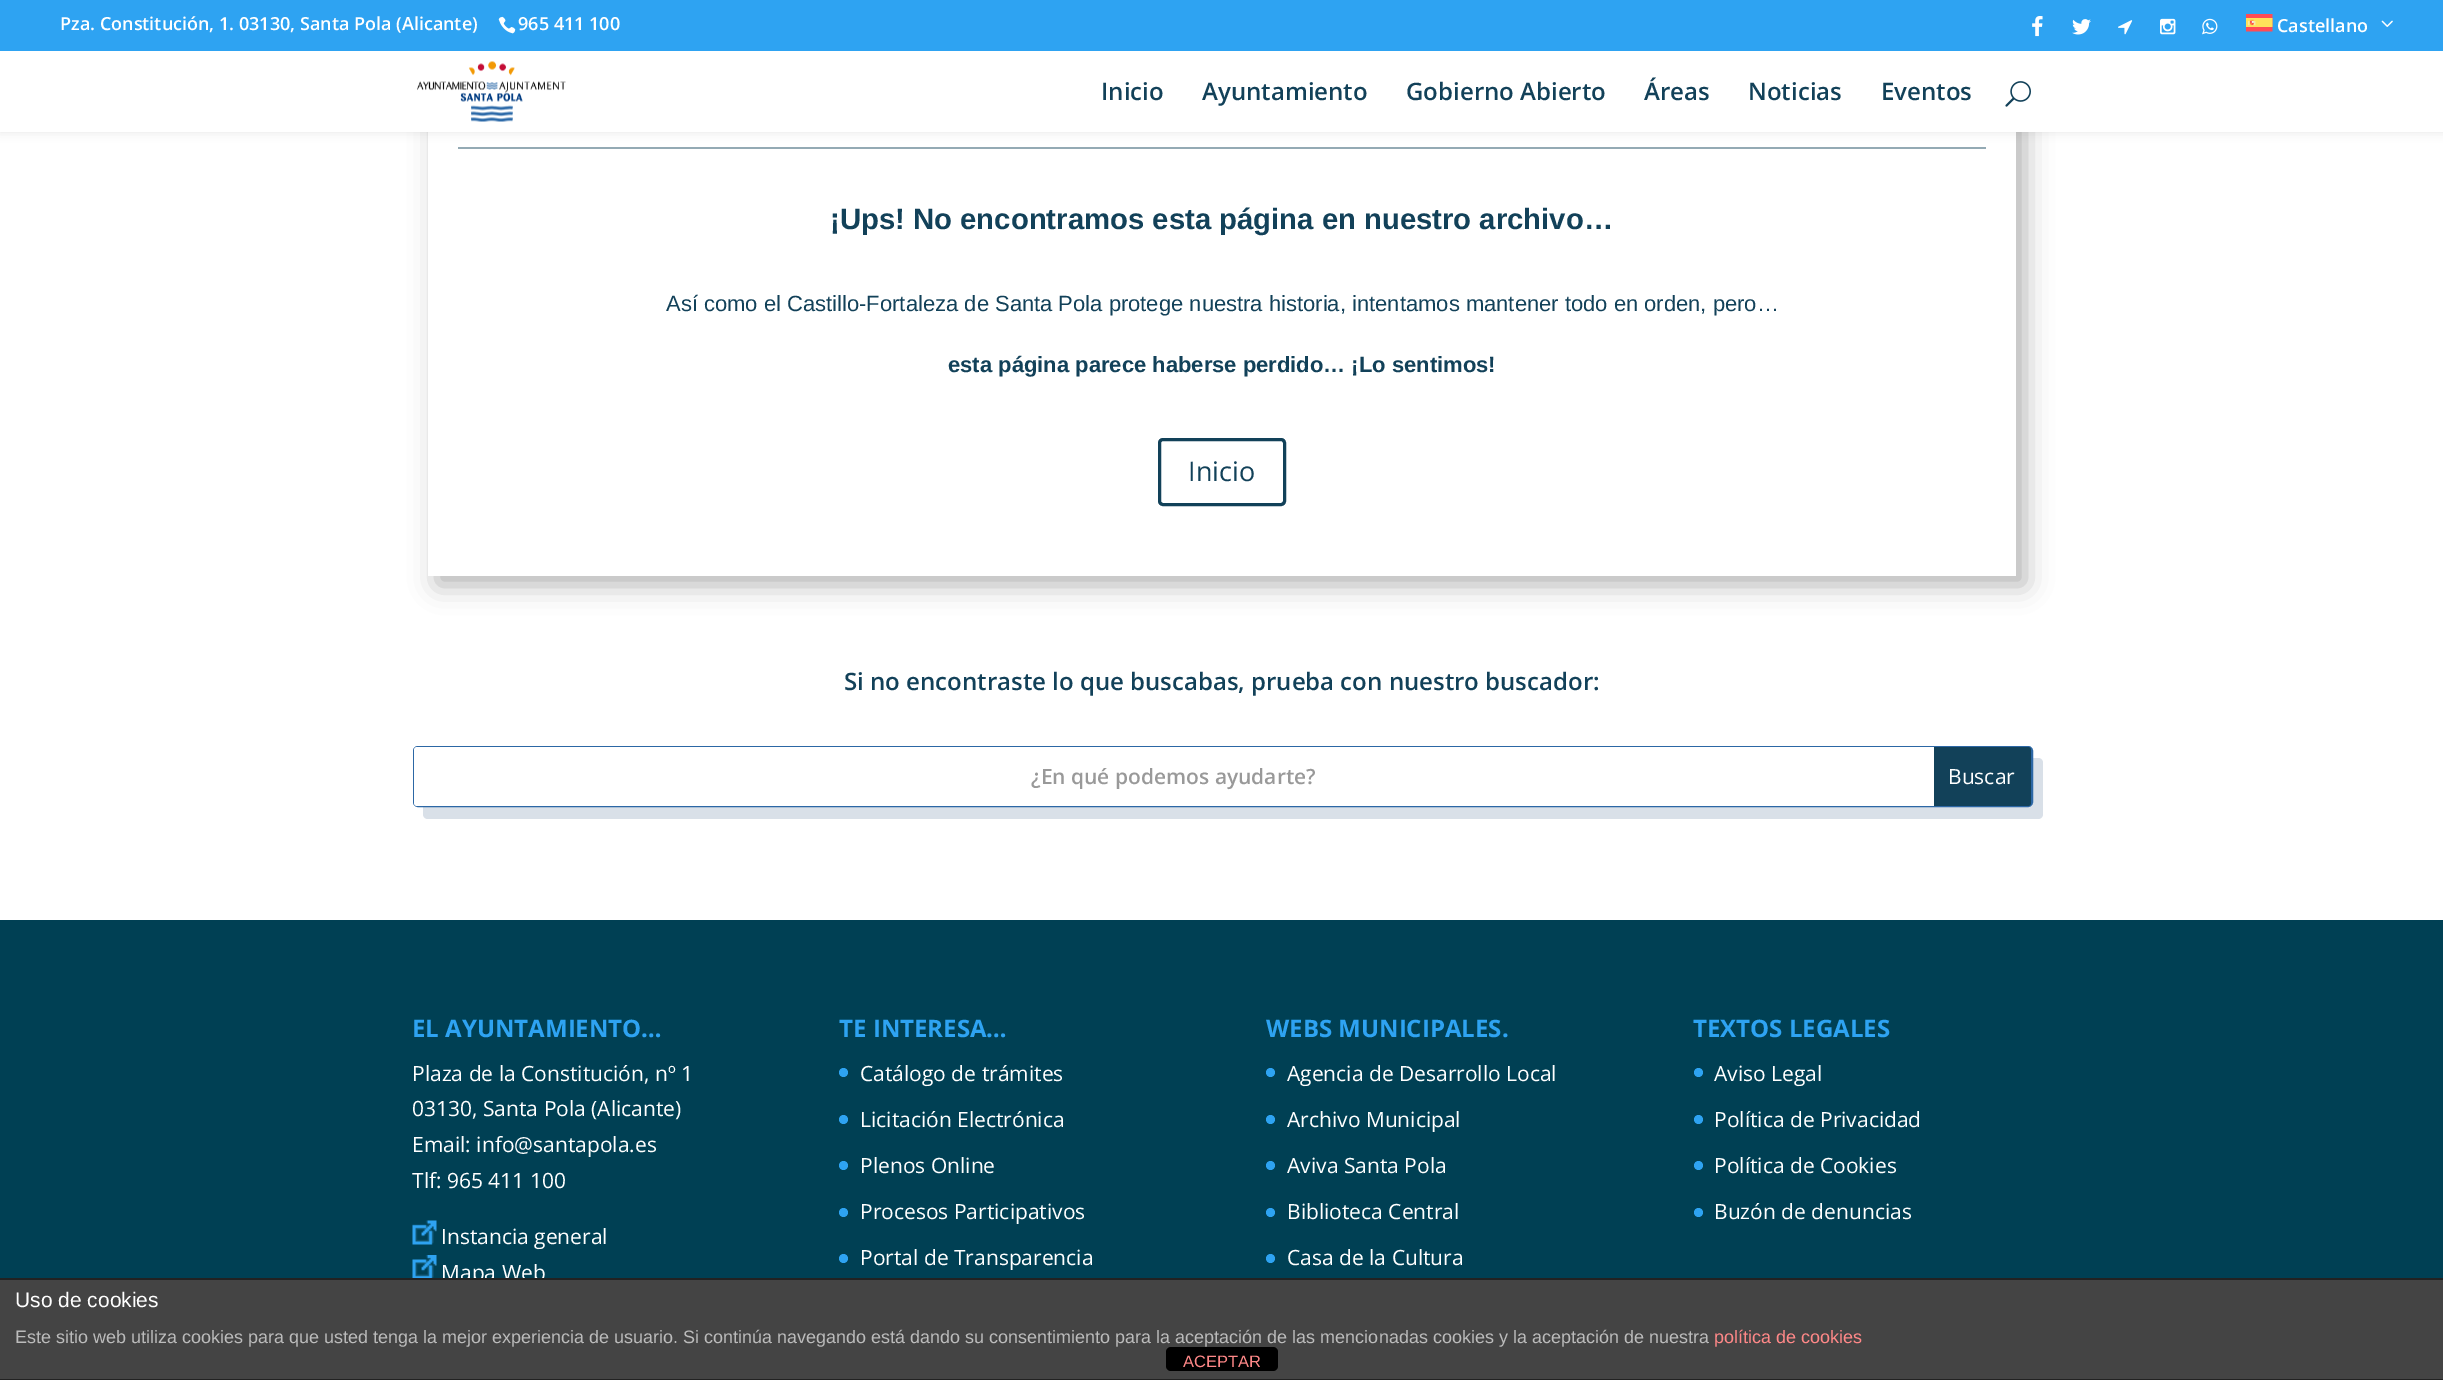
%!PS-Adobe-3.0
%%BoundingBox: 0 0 2443 1380
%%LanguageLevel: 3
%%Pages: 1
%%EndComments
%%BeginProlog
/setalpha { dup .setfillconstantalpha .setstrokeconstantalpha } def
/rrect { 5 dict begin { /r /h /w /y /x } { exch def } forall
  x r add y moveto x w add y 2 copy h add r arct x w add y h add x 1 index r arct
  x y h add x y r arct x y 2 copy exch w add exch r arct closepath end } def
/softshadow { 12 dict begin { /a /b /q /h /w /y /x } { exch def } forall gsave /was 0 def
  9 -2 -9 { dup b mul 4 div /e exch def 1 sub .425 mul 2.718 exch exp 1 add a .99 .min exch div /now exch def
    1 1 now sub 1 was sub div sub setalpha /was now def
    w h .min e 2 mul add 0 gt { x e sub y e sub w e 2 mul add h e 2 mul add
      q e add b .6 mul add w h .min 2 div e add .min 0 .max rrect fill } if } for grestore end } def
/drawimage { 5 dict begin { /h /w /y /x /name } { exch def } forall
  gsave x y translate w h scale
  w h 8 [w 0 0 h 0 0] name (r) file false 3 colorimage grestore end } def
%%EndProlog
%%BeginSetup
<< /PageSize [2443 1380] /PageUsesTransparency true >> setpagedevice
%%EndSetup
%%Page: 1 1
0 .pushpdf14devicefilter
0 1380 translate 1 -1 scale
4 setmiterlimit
1 setgray
0 0 2443 1380 rectfill
gsave
newpath 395 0 moveto 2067 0 lineto 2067 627 lineto 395 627 lineto closepath 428 -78 moveto 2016 -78 lineto 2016 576 lineto 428 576 lineto closepath eoclip newpath
0 setgray
437 -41 1588 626 0 13.5 0.3 softshadow
grestore
0.58 0.667 0.706 setrgbcolor
458 147 1528 2 rectfill
0 setgray
0 51 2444 81 0 5 0.1 softshadow
0.18 0.639 0.949 setrgbcolor
0 0 2443 51 rectfill
(images/1.raw) 498 16 18 18 drawimage
(images/2.raw) 2032 16 11 21 drawimage
(images/3.raw) 2072 19 19 16 drawimage
(images/4.raw) 2118 20 15 15 drawimage
(images/5.raw) 2160 18 16 17 drawimage
(images/6.raw) 2202 18 16 17 drawimage
(images/7.raw) 2246 14 27 18 drawimage
(images/8.raw) 2381 20 12 7 drawimage
1 setgray
0 51 2443 81 rectfill
(images/9.raw) 417 61 149 61 drawimage
(images/10.raw) 2005 81 26 26 drawimage
0.071 0.255 0.349 setrgbcolor
3 setlinewidth
1159.5 439.5 125 65 3.5 rrect stroke
0.851 0.878 0.91 setrgbcolor
newpath 423 807 moveto 423 814 lineto 423 817 425 819 428 819 curveto 2038 819 lineto 2041 819 2043 817 2043 814 curveto 2043 763 lineto 2043 760 2041 758 2038 758 curveto 2032 758 lineto 2032 802 lineto 2032 805 2030 807 2028 807 curveto closepath fill
0.173 0.404 0.647 setrgbcolor
2 setlinewidth
414 747 1618 59 4 rrect stroke
1 setgray
newpath 417 747 moveto 1934 747 lineto 1934 806 lineto 417 806 lineto 415.5 806 414 804.5 414 803 curveto 414 750 lineto 414 748.5 415.5 747 417 747 curveto closepath fill
0.071 0.255 0.349 setrgbcolor
newpath 1934 747 moveto 2028 747 lineto 2029.5 747 2031 748.5 2031 750 curveto 2031 803 lineto 2031 804.5 2029.5 806 2028 806 curveto 1934 806 lineto closepath fill
0 0.251 0.329 setrgbcolor
0 920 2443 358 rectfill
(images/11.raw) 412 1220 25 25 drawimage
(images/12.raw) 412 1255 25 23 drawimage
0.18 0.639 0.949 setrgbcolor
newpath 843.5 1072.5 4.5 0 360 arc closepath fill
newpath 843.5 1119.5 4.5 0 360 arc closepath fill
newpath 843.5 1165.5 4.5 0 360 arc closepath fill
newpath 843.5 1212.5 4.5 0 360 arc closepath fill
newpath 843.5 1258.5 4.5 0 360 arc closepath fill
newpath 1270.5 1072.5 4.5 0 360 arc closepath fill
newpath 1270.5 1119.5 4.5 0 360 arc closepath fill
newpath 1270.5 1165.5 4.5 0 360 arc closepath fill
newpath 1270.5 1212.5 4.5 0 360 arc closepath fill
newpath 1270.5 1258.5 4.5 0 360 arc closepath fill
newpath 1698.5 1072.5 4.5 0 360 arc closepath fill
newpath 1698.5 1119.5 4.5 0 360 arc closepath fill
newpath 1698.5 1165.5 4.5 0 360 arc closepath fill
newpath 1698.5 1212.5 4.5 0 360 arc closepath fill
0.133 setgray
0 1379 2443 1 rectfill
/OpenSans-SemiBold [18 0 0 -18 0 0] selectfont
1 setgray
60 30 moveto (Pza. Constitución, 1. 03130, Santa Pola \(Alicante\)) show
518 30 moveto (965 411 100) show
2277 32 moveto (Castellano) show
/OpenSans-SemiBold [24 0 0 -24 0 0] selectfont
0.071 0.255 0.349 setrgbcolor
1101 100 moveto (Inicio) show
1202 100 moveto (Ayuntamiento) show
1406 100 moveto (Gobierno Abierto) show
1644 100 moveto (Áreas) show
1748 100 moveto (Noticias) show
1881 100 moveto (Eventos) show
/LiberationSans-Bold [29.3 0 0 -29.3 0 0] selectfont
830 229 moveto (¡Ups! No encontramos esta página en nuestro archivo…) show
/LiberationSans-Regular [22 0 0 -22 0 0] selectfont
666 311 moveto (Así como el Castillo-Fortaleza de Santa Pola protege nuestra historia, intentamos mantener todo en orden, pero…) show
/LiberationSans-Bold [22 0 0 -22 0 0] selectfont
948 372 moveto (esta página parece haberse perdido… ¡Lo sentimos!) show
/OpenSans-Regular [27 0 0 -27 0 0] selectfont
1188 481 moveto (Inicio) show
/OpenSans-SemiBold [24 0 0 -24 0 0] selectfont
844 690 moveto (Si no encontraste lo que buscabas, prueba con nuestro buscador:) show
/OpenSans-SemiBold [21 0 0 -21 0 0] selectfont
0.6 setgray
1031 784 moveto (¿En qué podemos ayudarte?) show
/OpenSans-Regular [21 0 0 -21 0 0] selectfont
1 setgray
1948 784 moveto (Buscar) show
/OpenSans-Bold [24 0 0 -24 0 0] selectfont
0.18 0.639 0.949 setrgbcolor
412 1037 moveto (EL AYUNTAMIENTO…) show
/OpenSans-Regular [21 0 0 -21 0 0] selectfont
1 setgray
412 1081 moveto (Plaza de la Constitución, nº 1) show
412 1116 moveto (03130, Santa Pola \(Alicante\)) show
412 1152 moveto (Email: info@santapola.es) show
412 1188 moveto (Tlf: 965 411 100) show
441 1244 moveto (Instancia general) show
441 1280 moveto (Mapa Web) show
/OpenSans-Bold [24 0 0 -24 0 0] selectfont
0.18 0.639 0.949 setrgbcolor
839 1037 moveto (TE INTERESA…) show
/OpenSans-Regular [21 0 0 -21 0 0] selectfont
1 setgray
860 1081 moveto (Catálogo de trámites) show
860 1127 moveto (Licitación Electrónica) show
860 1173 moveto (Plenos Online) show
860 1219 moveto (Procesos Participativos) show
860 1265 moveto (Portal de Transparencia) show
/OpenSans-Bold [24 0 0 -24 0 0] selectfont
0.18 0.639 0.949 setrgbcolor
1266 1037 moveto (WEBS MUNICIPALES.) show
/OpenSans-Regular [21 0 0 -21 0 0] selectfont
1 setgray
1287 1081 moveto (Agencia de Desarrollo Local) show
1287 1127 moveto (Archivo Municipal) show
1287 1173 moveto (Aviva Santa Pola) show
1287 1219 moveto (Biblioteca Central) show
1287 1265 moveto (Casa de la Cultura) show
/OpenSans-Bold [24 0 0 -24 0 0] selectfont
0.18 0.639 0.949 setrgbcolor
1693 1037 moveto (TEXTOS LEGALES) show
/OpenSans-Regular [21 0 0 -21 0 0] selectfont
1 setgray
1714 1081 moveto (Aviso Legal) show
1714 1127 moveto (Política de Privacidad) show
1714 1173 moveto (Política de Cookies) show
1714 1219 moveto (Buzón de denuncias) show
0.267 setgray
0 1280 2443 99 rectfill
0.133 setgray
0 1278 2443 2 rectfill
/LiberationSans-Regular [21 0 0 -21 0 0] selectfont
1 setgray
15 1307 moveto (Uso de cookies) show
/LiberationSans-Regular [18 0 0 -18 0 0] selectfont
0.733 setgray
15 1343 moveto (Este sitio web utiliza cookies para que usted tenga la mejor experiencia de usuario. Si continúa navegando está dando su consentimiento para la aceptación de las mencionadas cookies y la aceptación de nuestra) show
1 0.533 0.533 setrgbcolor
1714 1343 moveto (política de cookies) show
0 setgray
1166 1347 112 24 5 rrect fill
/LiberationSans-Regular [16.5 0 0 -16.5 0 0] selectfont
1 0.533 0.533 setrgbcolor
1183 1367 moveto (ACEPTAR) show
.poppdf14devicefilter showpage
%%EOF
